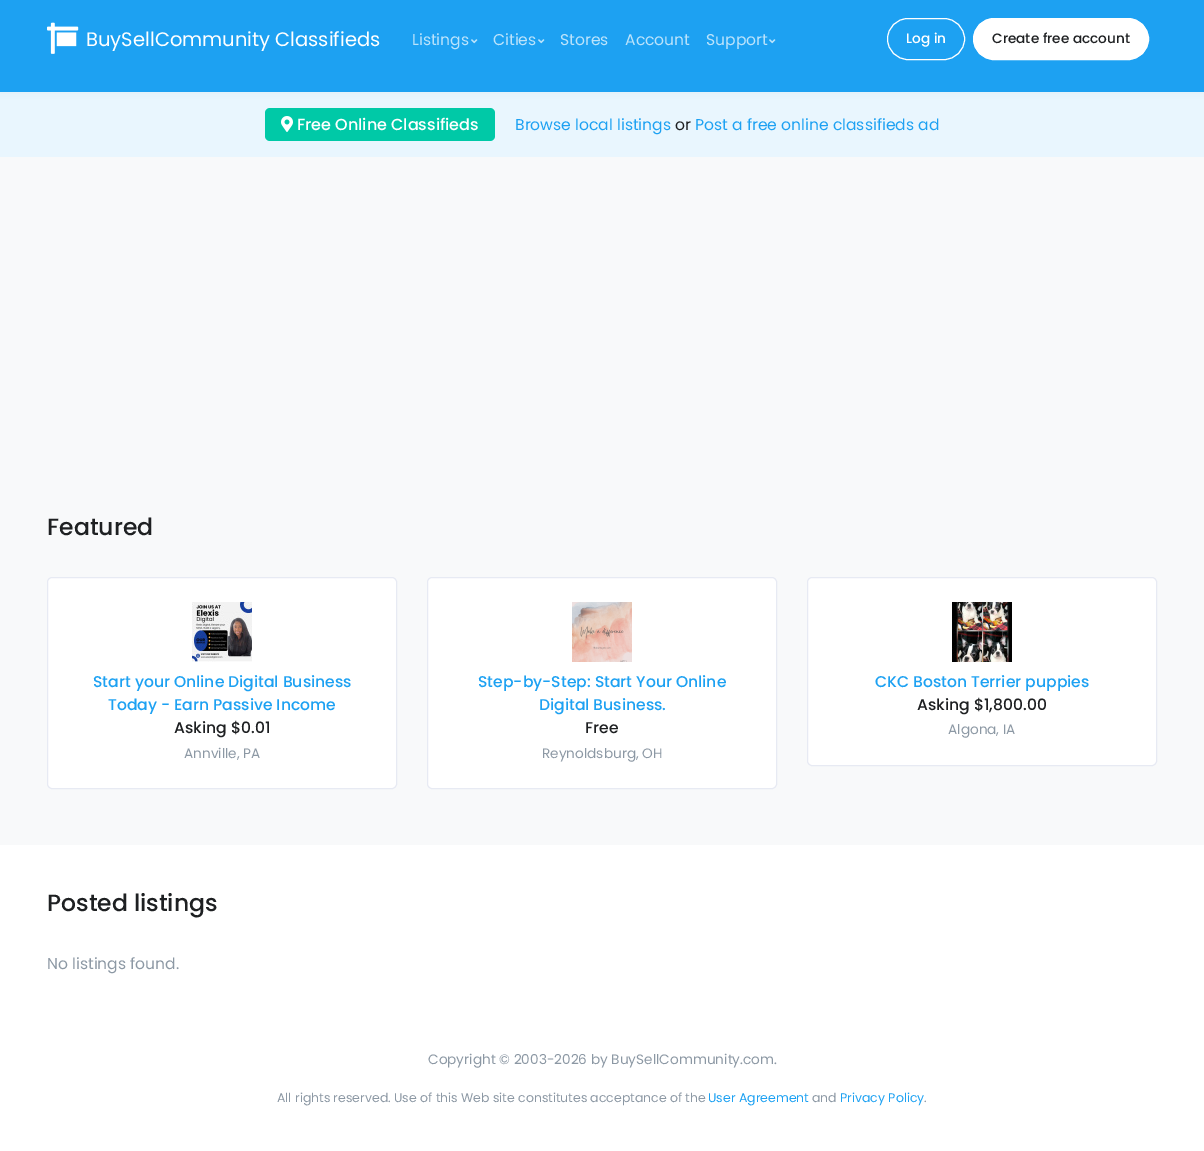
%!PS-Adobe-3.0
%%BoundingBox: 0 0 1204 1151
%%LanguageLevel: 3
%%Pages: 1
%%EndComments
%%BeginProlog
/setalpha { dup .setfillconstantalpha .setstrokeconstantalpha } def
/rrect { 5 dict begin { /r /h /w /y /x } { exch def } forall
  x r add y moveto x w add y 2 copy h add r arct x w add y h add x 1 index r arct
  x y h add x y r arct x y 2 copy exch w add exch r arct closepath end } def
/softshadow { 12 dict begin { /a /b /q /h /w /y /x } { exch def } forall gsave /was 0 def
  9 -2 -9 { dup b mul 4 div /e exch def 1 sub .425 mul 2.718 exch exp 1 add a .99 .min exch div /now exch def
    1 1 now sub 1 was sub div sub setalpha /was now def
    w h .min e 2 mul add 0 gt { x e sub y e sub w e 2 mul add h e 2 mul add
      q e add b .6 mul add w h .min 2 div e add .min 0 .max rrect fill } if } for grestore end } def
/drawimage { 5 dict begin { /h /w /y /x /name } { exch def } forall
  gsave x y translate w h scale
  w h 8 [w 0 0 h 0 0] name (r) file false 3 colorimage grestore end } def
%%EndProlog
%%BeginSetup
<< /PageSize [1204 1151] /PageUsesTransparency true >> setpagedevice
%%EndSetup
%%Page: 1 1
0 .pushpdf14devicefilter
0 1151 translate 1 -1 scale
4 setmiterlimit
1 setgray
0 0 1204 1151 rectfill
0.914 0.965 0.996 setrgbcolor
0 92 1204 65 rectfill
0 0.788 0.655 setrgbcolor
265 108 230 33 5 rrect fill
0.592 0.643 0.686 setrgbcolor
0 -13 1204 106 0 5 0.1 softshadow
0.114 0.631 0.949 setrgbcolor
0 0 1204 92 rectfill
(images/1.raw) 47 22 32 32 drawimage
(images/2.raw) 471 39 7 5 drawimage
(images/2.raw) 538 39 7 5 drawimage
(images/2.raw) 769 39 7 5 drawimage
1 setgray
887.5 18.5 77 41 20.5 rrect stroke
973.5 18.5 175 41 20.5 rrect gsave fill grestore
stroke
(images/3.raw) 281 116 12 16 drawimage
0.973 0.976 0.98 setrgbcolor
0 157 1204 688 rectfill
1 setgray
47.5 577.5 349 211 4.5 rrect gsave fill grestore
0.906 0.918 0.953 setrgbcolor
stroke
(images/4.raw) 192 602 60 60 drawimage
1 setgray
427.5 577.5 349 211 4.5 rrect gsave fill grestore
0.906 0.918 0.953 setrgbcolor
stroke
(images/5.raw) 572 602 60 60 drawimage
1 setgray
807.5 577.5 349 188 4.5 rrect gsave fill grestore
0.906 0.918 0.953 setrgbcolor
stroke
(images/6.raw) 952 602 60 60 drawimage
/Poppins-Regular [19.5 0 0 -19.5 0 0] selectfont
1 setgray
86 46 moveto (BuySellCommunity Classifieds) show
/Poppins-Regular [15.6 0 0 -15.6 0 0] selectfont
0.733 0.89 0.984 setrgbcolor
412 45 moveto (Listings) show
493 45 moveto (Cities) show
560 45 moveto (Stores) show
625 45 moveto (Account) show
706 45 moveto (Support) show
/Poppins-Medium [13.65 0 0 -13.65 0 0] selectfont
1 setgray
906 43 moveto (Log in) show
0.118 0.125 0.133 setrgbcolor
992 43 moveto (Create free account) show
/Poppins-Medium [16 0 0 -16 0 0] selectfont
1 setgray
297 130 moveto (Free Online Classifieds) show
/Poppins-Regular [15.6 0 0 -15.6 0 0] selectfont
0.114 0.631 0.949 setrgbcolor
515 130 moveto (Browse local listings) show
0.118 0.125 0.133 setrgbcolor
675 130 moveto (or) show
0.114 0.631 0.949 setrgbcolor
695 130 moveto (Post a free online classifieds ad) show
/Poppins-Medium [23.5 0 0 -23.5 0 0] selectfont
0.118 0.125 0.133 setrgbcolor
47 535 moveto (Featured) show
/Poppins-Medium [15.6 0 0 -15.6 0 0] selectfont
0.114 0.631 0.949 setrgbcolor
93 687 moveto (Start your Online Digital Business) show
108 710 moveto (Today - Earn Passive Income) show
0.118 0.125 0.133 setrgbcolor
174 733 moveto (Asking $0.01) show
/Poppins-Regular [13.65 0 0 -13.65 0 0] selectfont
0.549 0.596 0.643 setrgbcolor
184 758 moveto (Annville, PA) show
/Poppins-Medium [15.6 0 0 -15.6 0 0] selectfont
0.114 0.631 0.949 setrgbcolor
478 687 moveto (Step-by-Step: Start Your Online) show
539 710 moveto (Digital Business.) show
0.118 0.125 0.133 setrgbcolor
585 733 moveto (Free) show
/Poppins-Regular [13.65 0 0 -13.65 0 0] selectfont
0.549 0.596 0.643 setrgbcolor
542 758 moveto (Reynoldsburg, OH) show
/Poppins-Medium [15.6 0 0 -15.6 0 0] selectfont
0.114 0.631 0.949 setrgbcolor
875 687 moveto (CKC Boston Terrier puppies) show
0.118 0.125 0.133 setrgbcolor
917 710 moveto (Asking $1,800.00) show
/Poppins-Regular [13.65 0 0 -13.65 0 0] selectfont
0.549 0.596 0.643 setrgbcolor
948 734 moveto (Algona, IA) show
/Poppins-Medium [23.5 0 0 -23.5 0 0] selectfont
0.118 0.125 0.133 setrgbcolor
47 911 moveto (Posted listings) show
/Poppins-Regular [15.6 0 0 -15.6 0 0] selectfont
0.549 0.596 0.643 setrgbcolor
47 969 moveto (No listings found.) show
/Poppins-Regular [13.65 0 0 -13.65 0 0] selectfont
428 1064 moveto (Copyright © 2003-2026 by BuySellCommunity.com.) show
/Poppins-Regular [12.5 0 0 -12.5 0 0] selectfont
277 1102 moveto (All rights reserved. Use of this Web site constitutes acceptance of the) show
0.114 0.631 0.949 setrgbcolor
708 1102 moveto (User Agreement) show
0.549 0.596 0.643 setrgbcolor
812 1102 moveto (and) show
0.114 0.631 0.949 setrgbcolor
840 1102 moveto (Privacy Policy) show
0.549 0.596 0.643 setrgbcolor
924 1102 moveto (.) show
.poppdf14devicefilter showpage
%%EOF
